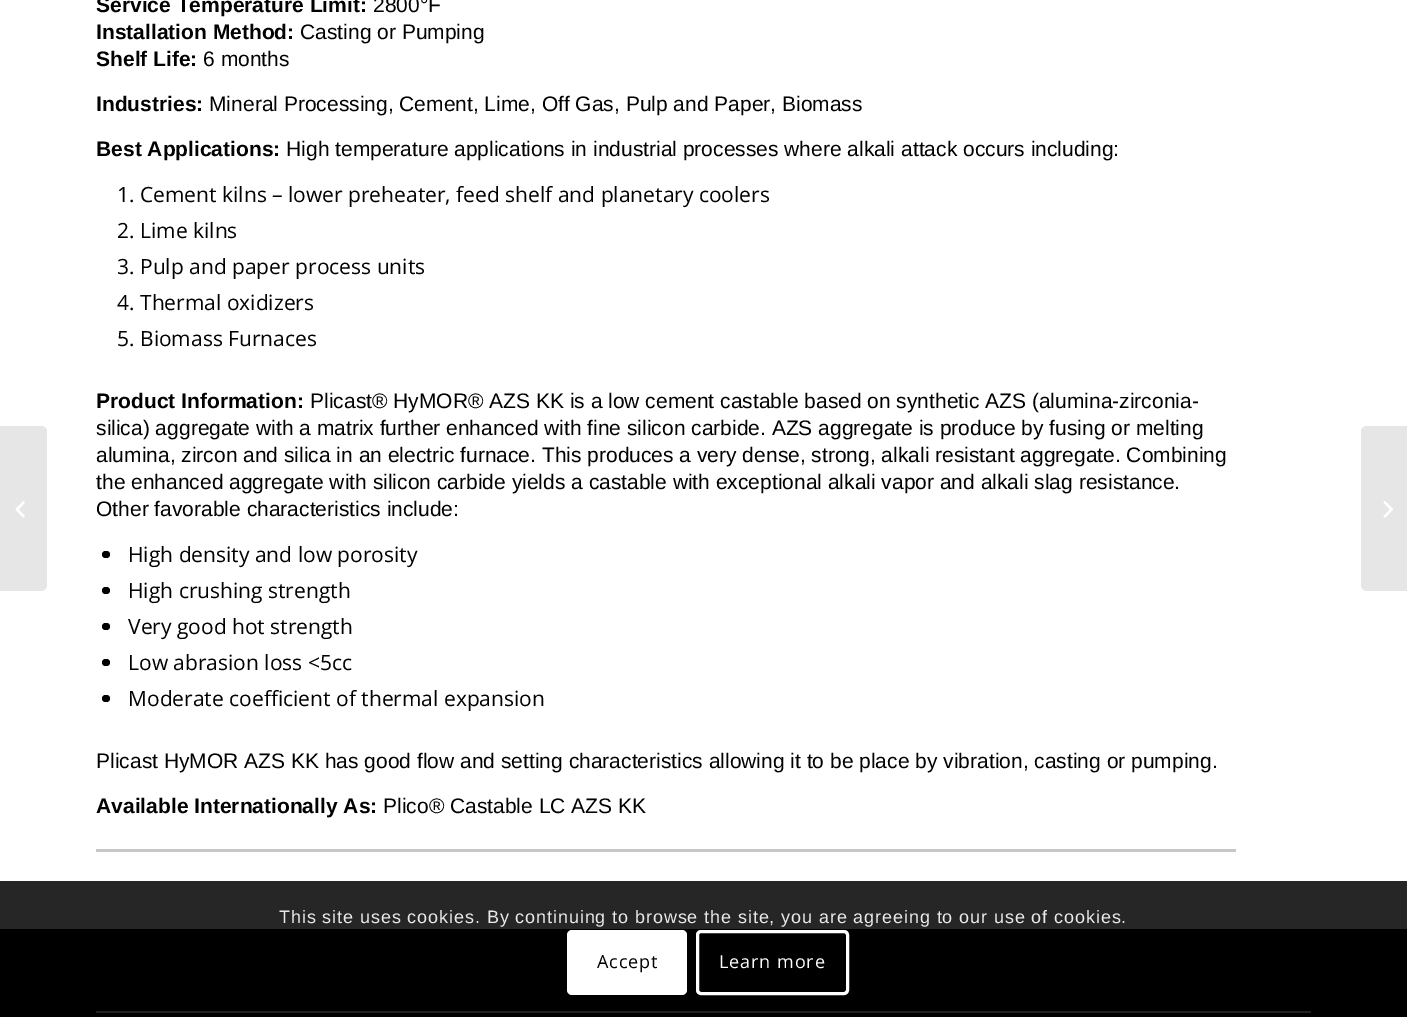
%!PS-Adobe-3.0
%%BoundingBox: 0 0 1407 1017
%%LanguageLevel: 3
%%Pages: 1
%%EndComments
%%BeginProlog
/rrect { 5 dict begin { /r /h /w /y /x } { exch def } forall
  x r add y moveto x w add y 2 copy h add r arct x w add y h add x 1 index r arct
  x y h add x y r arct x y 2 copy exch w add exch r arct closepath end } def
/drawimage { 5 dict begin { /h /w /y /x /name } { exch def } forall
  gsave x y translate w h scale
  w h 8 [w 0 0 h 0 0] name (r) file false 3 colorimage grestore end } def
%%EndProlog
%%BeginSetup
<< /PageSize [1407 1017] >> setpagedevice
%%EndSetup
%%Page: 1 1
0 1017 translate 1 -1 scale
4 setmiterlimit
1 setgray
0 0 1407 1017 rectfill
0.902 setgray
newpath 0 426 moveto 41 426 lineto 44.5 426 47 428.5 47 432 curveto 47 585 lineto 47 588.5 44.5 591 41 591 curveto 0 591 lineto closepath fill
(images/1.raw) 15 501 10 17 drawimage
0.149 setgray
0 881 1407 48 rectfill
0.78 setgray
96 849 1140 3 rectfill
0 setgray
102 551 8 7 3.5 rrect fill
102 587 8 7 3.5 rrect fill
102 623 8 7 3.5 rrect fill
102 659 8 7 3.5 rrect fill
102 695 8 7 3.5 rrect fill
0 929 1407 88 rectfill
0.129 setgray
96 1011 1215 2 rectfill
0.902 setgray
newpath 1367 426 moveto 1407 426 lineto 1407 591 lineto 1367 591 lineto 1363.5 591 1361 588.5 1361 585 curveto 1361 432 lineto 1361 428.5 1363.5 426 1367 426 curveto closepath fill
(images/2.raw) 1383 501 10 17 drawimage
1 setgray
567 930 120 65 5 rrect fill
3 setlinewidth
697.5 931.5 150 62 3.5 rrect stroke
/LiberationSans-Bold [21 0 0 -21 0 0] selectfont
0 setgray
96 12 moveto (Service Temperature Limit:) show
/LiberationSans-Regular [21 0 0 -21 0 0] selectfont
373 12 moveto (2800°F) show
/LiberationSans-Bold [21 0 0 -21 0 0] selectfont
96 39 moveto (Installation Method:) show
/LiberationSans-Regular [21 0 0 -21 0 0] selectfont
300 39 moveto (Casting or Pumping) show
/LiberationSans-Bold [21 0 0 -21 0 0] selectfont
96 66 moveto (Shelf Life:) show
/LiberationSans-Regular [21 0 0 -21 0 0] selectfont
203 66 moveto (6 months) show
/LiberationSans-Bold [21 0 0 -21 0 0] selectfont
96 111 moveto (Industries:) show
/LiberationSans-Regular [21 0 0 -21 0 0] selectfont
209 111 moveto (Mineral Processing, Cement, Lime, Off Gas, Pulp and Paper, Biomass) show
/LiberationSans-Bold [21 0 0 -21 0 0] selectfont
96 156 moveto (Best Applications:) show
/LiberationSans-Regular [21 0 0 -21 0 0] selectfont
286 156 moveto (High temperature applications in industrial processes where alkali attack occurs including:) show
/OpenSans-Regular [21 0 0 -21 0 0] selectfont
117 202 moveto (1. Cement kilns – lower preheater, feed shelf and planetary coolers) show
117 238 moveto (2. Lime kilns) show
117 274 moveto (3. Pulp and paper process units) show
117 310 moveto (4. Thermal oxidizers) show
117 346 moveto (5. Biomass Furnaces) show
/LiberationSans-Bold [21 0 0 -21 0 0] selectfont
96 408 moveto (Product Information:) show
/LiberationSans-Regular [21 0 0 -21 0 0] selectfont
310 408 moveto (Plicast® HyMOR® AZS KK is a low cement castable based on synthetic AZS \(alumina-zirconia-) show
96 435 moveto (silica\) aggregate with a matrix further enhanced with fine silicon carbide. AZS aggregate is produce by fusing or melting) show
96 462 moveto (alumina, zircon and silica in an electric furnace. This produces a very dense, strong, alkali resistant aggregate. Combining) show
96 489 moveto (the enhanced aggregate with silicon carbide yields a castable with exceptional alkali vapor and alkali slag resistance.) show
96 516 moveto (Other favorable characteristics include:) show
/OpenSans-Regular [21 0 0 -21 0 0] selectfont
128 562 moveto (High density and low porosity) show
128 598 moveto (High crushing strength) show
128 634 moveto (Very good hot strength) show
128 670 moveto (Low abrasion loss <5cc) show
128 706 moveto (Moderate coefficient of thermal expansion) show
/LiberationSans-Regular [21 0 0 -21 0 0] selectfont
96 768 moveto (Plicast HyMOR AZS KK has good flow and setting characteristics allowing it to be place by vibration, casting or pumping.) show
/LiberationSans-Bold [21 0 0 -21 0 0] selectfont
96 813 moveto (Available Internationally As:) show
/LiberationSans-Regular [21 0 0 -21 0 0] selectfont
383 813 moveto (Plico® Castable LC AZS KK) show
/LiberationSans-Regular [18 0 0 -18 0 0] selectfont
0.914 setgray
279 923 moveto 0.9 0 (This site uses cookies. By continuing to browse the site, you are agreeing to our use of cookies.) ashow
/OpenSans-Regular [18 0 0 -18 0 0] selectfont
0 setgray
597 968 moveto 0.9 0 (Accept) ashow
1 setgray
719 968 moveto 0.9 0 (Learn more) ashow
showpage
%%EOF
